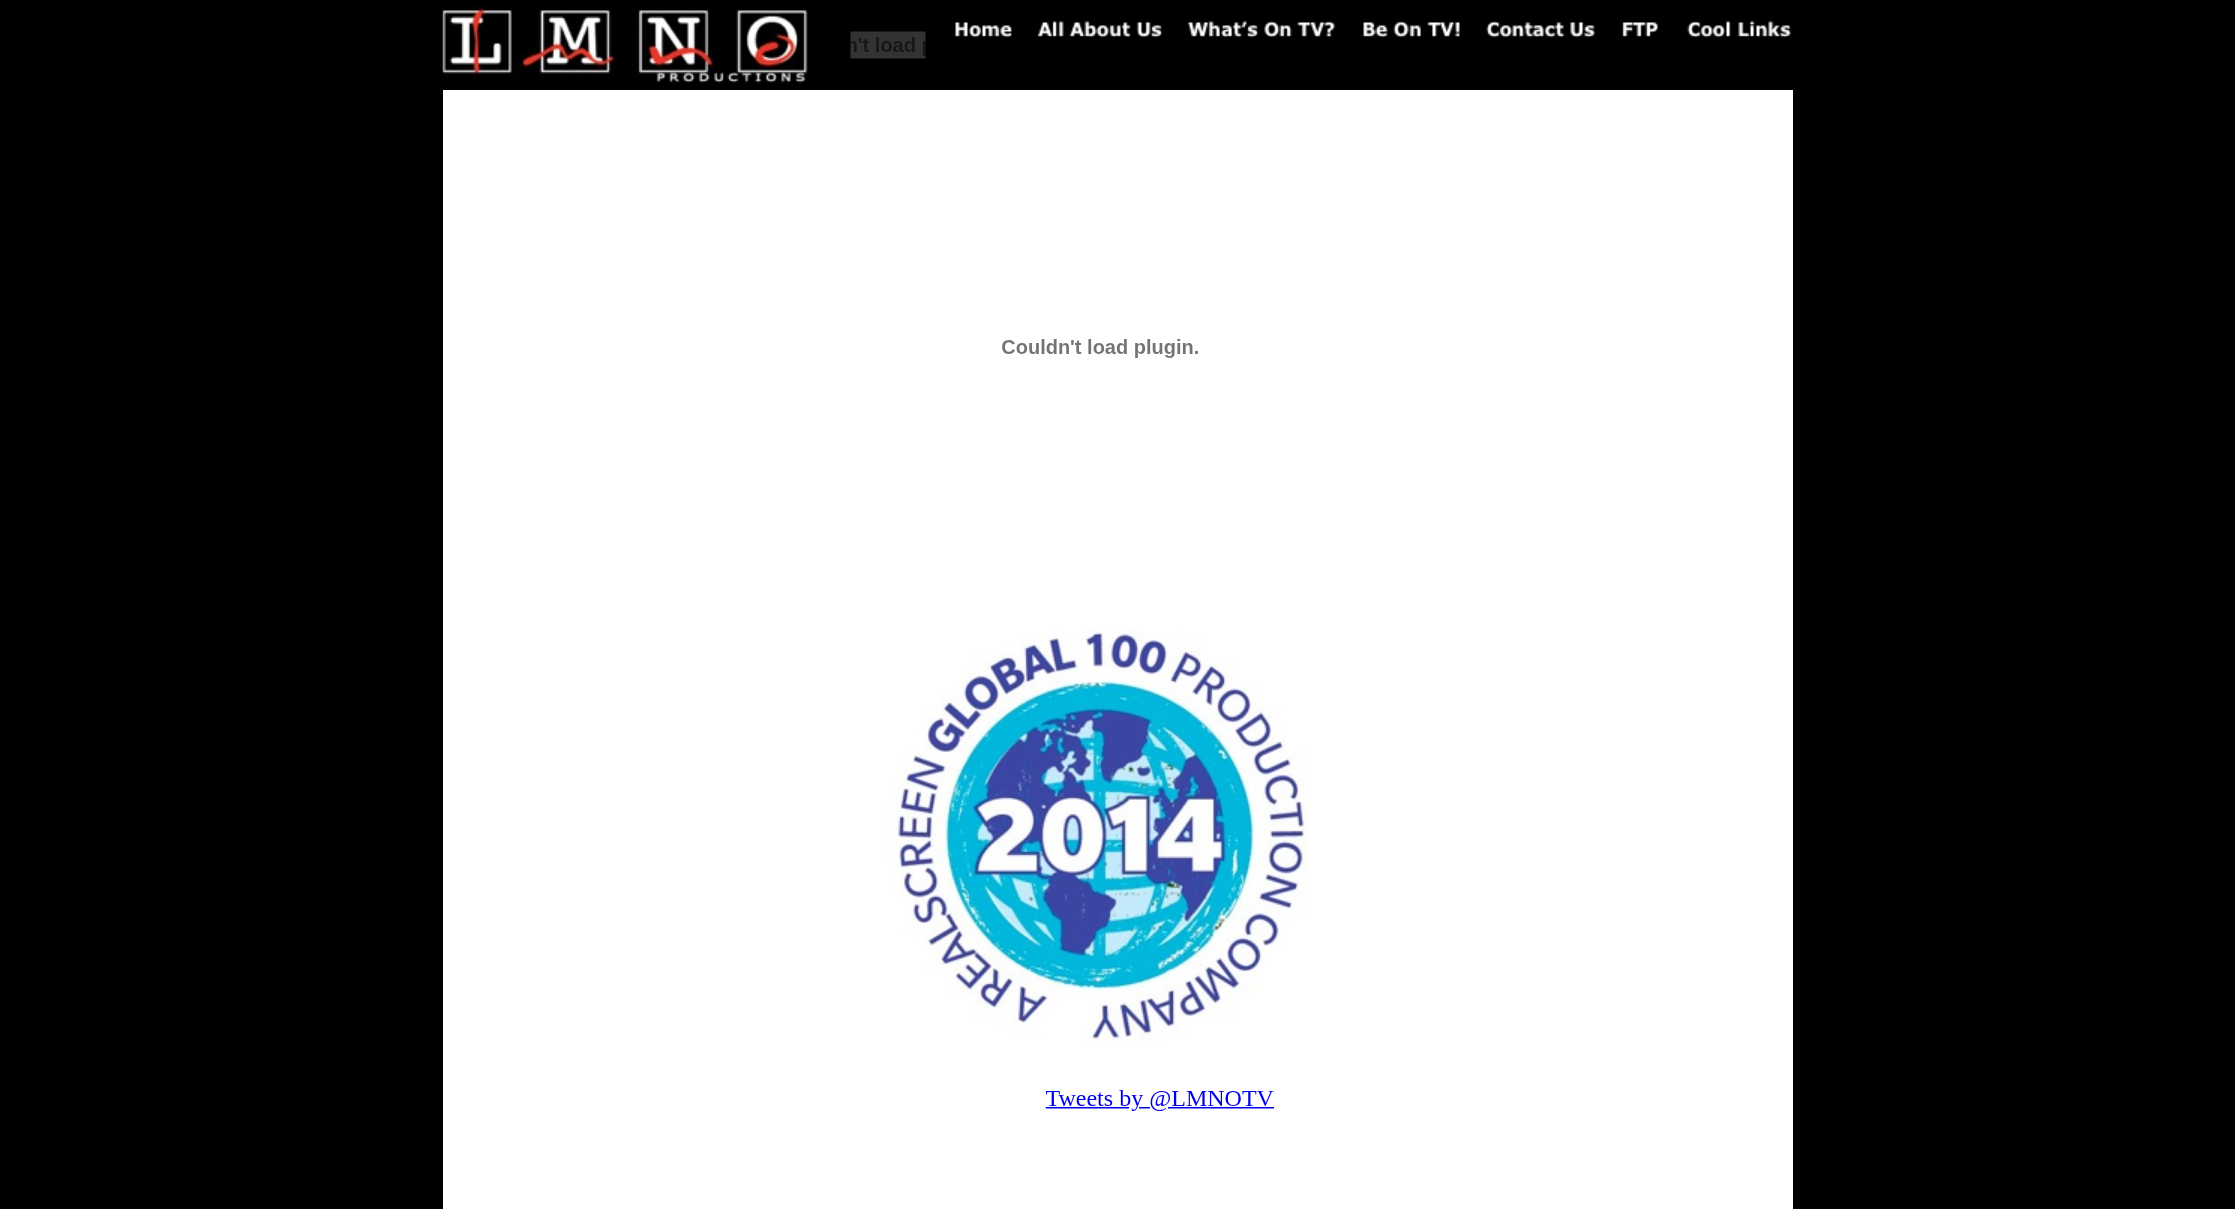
%!PS-Adobe-3.0
%%BoundingBox: 0 0 2235 1209
%%LanguageLevel: 3
%%Pages: 1
%%EndComments
%%BeginProlog
/drawimage { 5 dict begin { /h /w /y /x /name } { exch def } forall
  gsave x y translate w h scale
  w h 8 [w 0 0 h 0 0] name (r) file false 3 colorimage grestore end } def
%%EndProlog
%%BeginSetup
<< /PageSize [2235 1209] >> setpagedevice
%%EndSetup
%%Page: 1 1
0 1209 translate 1 -1 scale
4 setmiterlimit
0 setgray
0 0 2235 1209 rectfill
(images/1.raw) 442 6 366 79 drawimage
(images/2.raw) 955 22 58 16 drawimage
(images/3.raw) 1038 20 124 18 drawimage
(images/4.raw) 1188 20 148 18 drawimage
(images/5.raw) 1363 21 97 17 drawimage
(images/6.raw) 1486 21 109 17 drawimage
(images/7.raw) 1622 22 36 15 drawimage
(images/8.raw) 1687 20 104 18 drawimage
(images/9.raw) 850 31 76 28 drawimage
1 setgray
443 90 1350 1119 rectfill
(images/10.raw) 1002 339 196 19 drawimage
(images/11.raw) 884 630 426 411 drawimage
(images/12.raw) 1045 1090 229 21 drawimage
showpage
%%EOF
